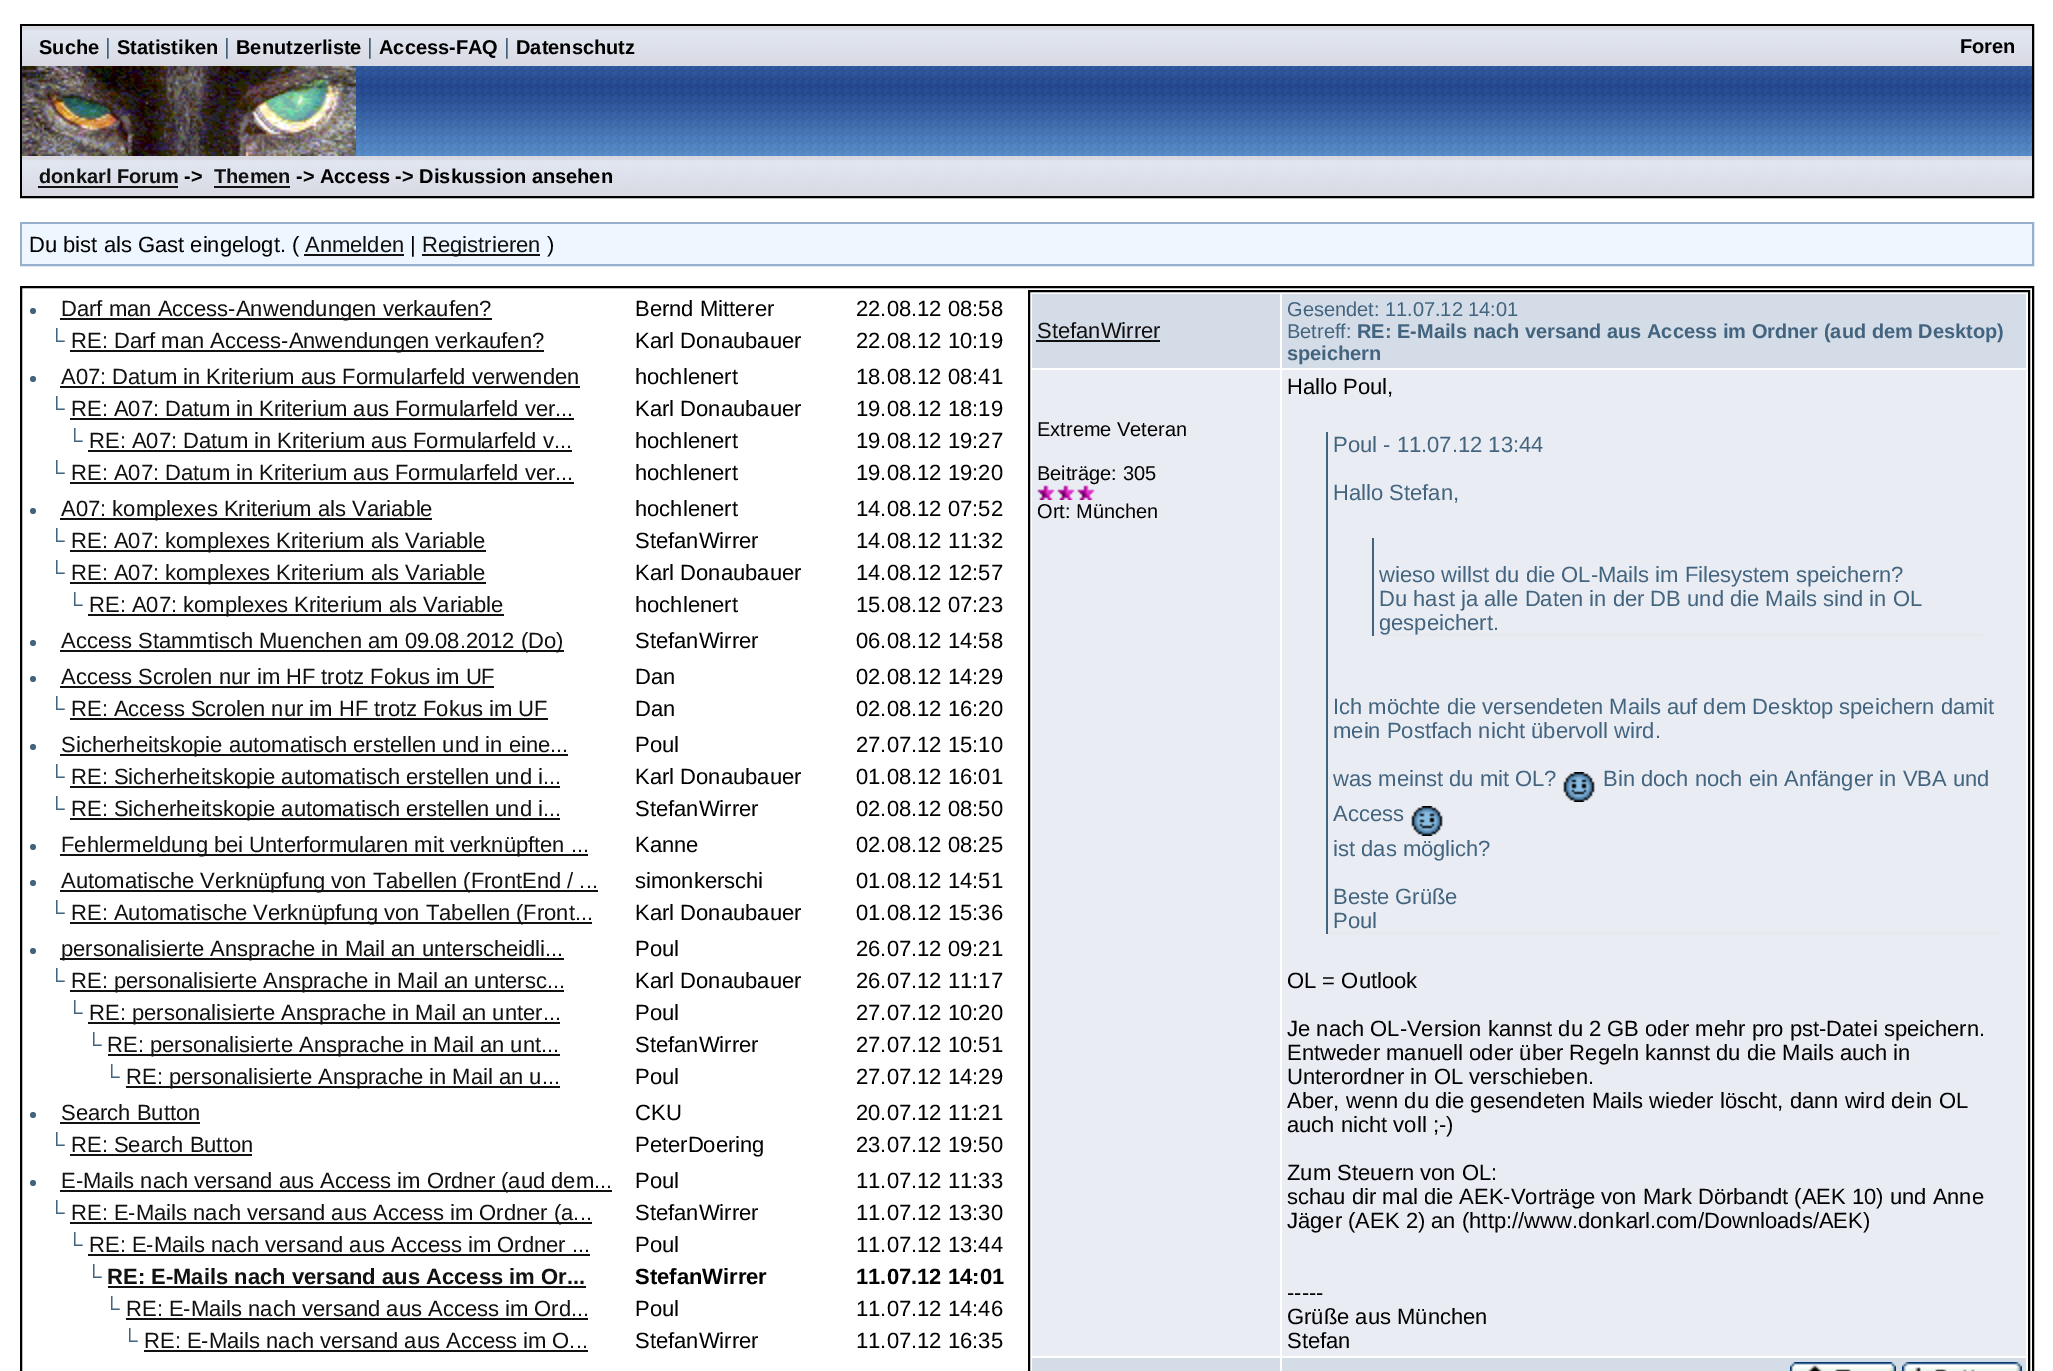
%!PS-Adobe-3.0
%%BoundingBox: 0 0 2053 1371
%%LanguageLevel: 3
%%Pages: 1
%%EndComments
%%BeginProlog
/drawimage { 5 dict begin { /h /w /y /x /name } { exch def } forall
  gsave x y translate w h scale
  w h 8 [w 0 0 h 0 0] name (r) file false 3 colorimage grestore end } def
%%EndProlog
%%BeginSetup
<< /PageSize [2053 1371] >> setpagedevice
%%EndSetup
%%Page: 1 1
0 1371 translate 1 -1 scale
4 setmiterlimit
1 setgray
0 0 2053 1371 rectfill
0 setgray
2 setlinewidth
21 25 2012 172 rectstroke
(images/1.raw) 22 26 2010 40 drawimage
(images/2.raw) 356 66 1676 90 drawimage
(images/3.raw) 22 66 334 90 drawimage
(images/4.raw) 22 156 1908 40 drawimage
0.067 setgray
38 186 140 2 rectfill
214 186 76 2 rectfill
(images/5.raw) 1930 156 102 40 drawimage
0.588 0.686 0.804 setrgbcolor
21 223 2012 42 rectstroke
0.933 0.965 1 setrgbcolor
22 224 2010 40 rectfill
0.067 setgray
304 254 100 2 rectfill
422 254 118 2 rectfill
0 setgray
21 287 2012 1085 rectstroke
0.263 0.392 0.494 setrgbcolor
newpath 33 311 3 0 360 arc closepath fill
0.067 setgray
60 318 432 2 rectfill
70 350 474 2 rectfill
0.263 0.392 0.494 setrgbcolor
newpath 33 379 3 0 360 arc closepath fill
0.067 setgray
60 386 520 2 rectfill
70 418 504 2 rectfill
88 450 484 2 rectfill
70 482 504 2 rectfill
0.263 0.392 0.494 setrgbcolor
newpath 33 511 3 0 360 arc closepath fill
0.067 setgray
60 518 372 2 rectfill
70 550 416 2 rectfill
70 582 416 2 rectfill
88 614 416 2 rectfill
0.263 0.392 0.494 setrgbcolor
newpath 33 643 3 0 360 arc closepath fill
0.067 setgray
60 650 504 2 rectfill
0.263 0.392 0.494 setrgbcolor
newpath 33 679 3 0 360 arc closepath fill
0.067 setgray
60 686 434 2 rectfill
70 718 478 2 rectfill
0.263 0.392 0.494 setrgbcolor
newpath 33 747 3 0 360 arc closepath fill
0.067 setgray
60 754 508 2 rectfill
70 786 490 2 rectfill
70 818 490 2 rectfill
0.263 0.392 0.494 setrgbcolor
newpath 33 847 3 0 360 arc closepath fill
0.067 setgray
60 854 528 2 rectfill
0.263 0.392 0.494 setrgbcolor
newpath 33 883 3 0 360 arc closepath fill
0.067 setgray
60 890 538 2 rectfill
70 922 522 2 rectfill
0.263 0.392 0.494 setrgbcolor
newpath 33 951 3 0 360 arc closepath fill
0.067 setgray
60 958 504 2 rectfill
70 990 494 2 rectfill
88 1022 472 2 rectfill
108 1054 452 2 rectfill
126 1086 434 2 rectfill
0.263 0.392 0.494 setrgbcolor
newpath 33 1115 3 0 360 arc closepath fill
0.067 setgray
60 1122 140 2 rectfill
70 1154 182 2 rectfill
0.263 0.392 0.494 setrgbcolor
newpath 33 1183 3 0 360 arc closepath fill
0.067 setgray
60 1190 552 2 rectfill
70 1222 522 2 rectfill
88 1254 502 2 rectfill
108 1286 478 2 rectfill
126 1318 462 2 rectfill
144 1350 444 2 rectfill
0 setgray
1029 291 1000 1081 rectstroke
0.831 0.863 0.91 setrgbcolor
1032 294 248 74 rectfill
0.067 setgray
1036 340 124 2 rectfill
0.831 0.863 0.91 setrgbcolor
1282 294 744 74 rectfill
0.914 0.929 0.953 setrgbcolor
1032 370 248 986 rectfill
(images/6.raw) 1037 485 18 15 drawimage
(images/6.raw) 1057 485 18 15 drawimage
(images/6.raw) 1077 485 18 15 drawimage
1282 370 744 986 rectfill
0.906 0.914 0.937 setrgbcolor
1326 932 676 2 rectfill
0.263 0.392 0.494 setrgbcolor
1326 432 2 502 rectfill
0.906 0.914 0.937 setrgbcolor
1372 634 610 2 rectfill
0.263 0.392 0.494 setrgbcolor
1372 538 2 98 rectfill
(images/7.raw) 1563 772 32 30 drawimage
(images/8.raw) 1411 806 32 30 drawimage
0.831 0.863 0.91 setrgbcolor
1032 1358 248 13 rectfill
1282 1358 744 13 rectfill
(images/9.raw) 1790 1362 106 9 drawimage
(images/10.raw) 1902 1362 120 9 drawimage
/LiberationSans-Bold [20 0 0 -20 0 0] selectfont
0 setgray
39 54 moveto (Suche) show
/LiberationSans-Regular [22 0 0 -22 0 0] selectfont
0.263 0.392 0.494 setrgbcolor
105 54 moveto (|) show
/LiberationSans-Bold [20 0 0 -20 0 0] selectfont
0 setgray
117 54 moveto (Statistiken) show
/LiberationSans-Regular [22 0 0 -22 0 0] selectfont
0.263 0.392 0.494 setrgbcolor
224 54 moveto (|) show
/LiberationSans-Bold [20 0 0 -20 0 0] selectfont
0 setgray
236 54 moveto (Benutzerliste) show
/LiberationSans-Regular [22 0 0 -22 0 0] selectfont
0.263 0.392 0.494 setrgbcolor
367 54 moveto (|) show
/LiberationSans-Bold [20 0 0 -20 0 0] selectfont
0 setgray
379 54 moveto (Access-FAQ) show
/LiberationSans-Regular [22 0 0 -22 0 0] selectfont
0.263 0.392 0.494 setrgbcolor
504 54 moveto (|) show
/LiberationSans-Bold [20 0 0 -20 0 0] selectfont
0 setgray
516 54 moveto (Datenschutz) show
1960 53 moveto (Foren) show
0.067 setgray
39 183 moveto (donkarl Forum) show
0 setgray
184 183 moveto (->) show
0.067 setgray
214 183 moveto (Themen) show
0 setgray
296 183 moveto (-> Access -> Diskussion ansehen) show
/LiberationSans-Regular [22 0 0 -22 0 0] selectfont
29 252 moveto (Du bist als Gast eingelogt. \() show
0.067 setgray
305 252 moveto (Anmelden) show
0 setgray
410 252 moveto (|) show
0.067 setgray
422 252 moveto (Registrieren) show
0 setgray
547 252 moveto (\)) show
0.067 setgray
61 316 moveto (Darf man Access-Anwendungen verkaufen?) show
0 setgray
635 316 moveto (Bernd Mitterer) show
856 316 moveto (22.08.12 08:58) show
0.263 0.392 0.494 setrgbcolor
49 348 moveto (└) show
0.067 setgray
71 348 moveto (RE: Darf man Access-Anwendungen verkaufen?) show
0 setgray
635 348 moveto (Karl Donaubauer) show
856 348 moveto (22.08.12 10:19) show
0.067 setgray
61 384 moveto (A07: Datum in Kriterium aus Formularfeld verwenden) show
0 setgray
635 384 moveto (hochlenert) show
856 384 moveto (18.08.12 08:41) show
0.263 0.392 0.494 setrgbcolor
49 416 moveto (└) show
0.067 setgray
71 416 moveto (RE: A07: Datum in Kriterium aus Formularfeld ver...) show
0 setgray
635 416 moveto (Karl Donaubauer) show
856 416 moveto (19.08.12 18:19) show
0.263 0.392 0.494 setrgbcolor
67 448 moveto (└) show
0.067 setgray
89 448 moveto (RE: A07: Datum in Kriterium aus Formularfeld v...) show
0 setgray
635 448 moveto (hochlenert) show
856 448 moveto (19.08.12 19:27) show
0.263 0.392 0.494 setrgbcolor
49 480 moveto (└) show
0.067 setgray
71 480 moveto (RE: A07: Datum in Kriterium aus Formularfeld ver...) show
0 setgray
635 480 moveto (hochlenert) show
856 480 moveto (19.08.12 19:20) show
0.067 setgray
61 516 moveto (A07: komplexes Kriterium als Variable) show
0 setgray
635 516 moveto (hochlenert) show
856 516 moveto (14.08.12 07:52) show
0.263 0.392 0.494 setrgbcolor
49 548 moveto (└) show
0.067 setgray
71 548 moveto (RE: A07: komplexes Kriterium als Variable) show
0 setgray
635 548 moveto (StefanWirrer) show
856 548 moveto (14.08.12 11:32) show
0.263 0.392 0.494 setrgbcolor
49 580 moveto (└) show
0.067 setgray
71 580 moveto (RE: A07: komplexes Kriterium als Variable) show
0 setgray
635 580 moveto (Karl Donaubauer) show
856 580 moveto (14.08.12 12:57) show
0.263 0.392 0.494 setrgbcolor
67 612 moveto (└) show
0.067 setgray
89 612 moveto (RE: A07: komplexes Kriterium als Variable) show
0 setgray
635 612 moveto (hochlenert) show
856 612 moveto (15.08.12 07:23) show
0.067 setgray
61 648 moveto (Access Stammtisch Muenchen am 09.08.2012 \(Do\)) show
0 setgray
635 648 moveto (StefanWirrer) show
856 648 moveto (06.08.12 14:58) show
0.067 setgray
61 684 moveto (Access Scrolen nur im HF trotz Fokus im UF) show
0 setgray
635 684 moveto (Dan) show
856 684 moveto (02.08.12 14:29) show
0.263 0.392 0.494 setrgbcolor
49 716 moveto (└) show
0.067 setgray
71 716 moveto (RE: Access Scrolen nur im HF trotz Fokus im UF) show
0 setgray
635 716 moveto (Dan) show
856 716 moveto (02.08.12 16:20) show
0.067 setgray
61 752 moveto (Sicherheitskopie automatisch erstellen und in eine...) show
0 setgray
635 752 moveto (Poul) show
856 752 moveto (27.07.12 15:10) show
0.263 0.392 0.494 setrgbcolor
49 784 moveto (└) show
0.067 setgray
71 784 moveto (RE: Sicherheitskopie automatisch erstellen und i...) show
0 setgray
635 784 moveto (Karl Donaubauer) show
856 784 moveto (01.08.12 16:01) show
0.263 0.392 0.494 setrgbcolor
49 816 moveto (└) show
0.067 setgray
71 816 moveto (RE: Sicherheitskopie automatisch erstellen und i...) show
0 setgray
635 816 moveto (StefanWirrer) show
856 816 moveto (02.08.12 08:50) show
0.067 setgray
61 852 moveto (Fehlermeldung bei Unterformularen mit verknüpften ...) show
0 setgray
635 852 moveto (Kanne) show
856 852 moveto (02.08.12 08:25) show
0.067 setgray
61 888 moveto (Automatische Verknüpfung von Tabellen \(FrontEnd / ...) show
0 setgray
635 888 moveto (simonkerschi) show
856 888 moveto (01.08.12 14:51) show
0.263 0.392 0.494 setrgbcolor
49 920 moveto (└) show
0.067 setgray
71 920 moveto (RE: Automatische Verknüpfung von Tabellen \(Front...) show
0 setgray
635 920 moveto (Karl Donaubauer) show
856 920 moveto (01.08.12 15:36) show
0.067 setgray
61 956 moveto (personalisierte Ansprache in Mail an unterscheidli...) show
0 setgray
635 956 moveto (Poul) show
856 956 moveto (26.07.12 09:21) show
0.263 0.392 0.494 setrgbcolor
49 988 moveto (└) show
0.067 setgray
71 988 moveto (RE: personalisierte Ansprache in Mail an untersc...) show
0 setgray
635 988 moveto (Karl Donaubauer) show
856 988 moveto (26.07.12 11:17) show
0.263 0.392 0.494 setrgbcolor
67 1020 moveto (└) show
0.067 setgray
89 1020 moveto (RE: personalisierte Ansprache in Mail an unter...) show
0 setgray
635 1020 moveto (Poul) show
856 1020 moveto (27.07.12 10:20) show
0.263 0.392 0.494 setrgbcolor
86 1052 moveto (└) show
0.067 setgray
107 1052 moveto (RE: personalisierte Ansprache in Mail an unt...) show
0 setgray
635 1052 moveto (StefanWirrer) show
856 1052 moveto (27.07.12 10:51) show
0.263 0.392 0.494 setrgbcolor
104 1084 moveto (└) show
0.067 setgray
126 1084 moveto (RE: personalisierte Ansprache in Mail an u...) show
0 setgray
635 1084 moveto (Poul) show
856 1084 moveto (27.07.12 14:29) show
0.067 setgray
61 1120 moveto (Search Button) show
0 setgray
635 1120 moveto (CKU) show
856 1120 moveto (20.07.12 11:21) show
0.263 0.392 0.494 setrgbcolor
49 1152 moveto (└) show
0.067 setgray
71 1152 moveto (RE: Search Button) show
0 setgray
635 1152 moveto (PeterDoering) show
856 1152 moveto (23.07.12 19:50) show
0.067 setgray
61 1188 moveto (E-Mails nach versand aus Access im Ordner \(aud dem...) show
0 setgray
635 1188 moveto (Poul) show
856 1188 moveto (11.07.12 11:33) show
0.263 0.392 0.494 setrgbcolor
49 1220 moveto (└) show
0.067 setgray
71 1220 moveto (RE: E-Mails nach versand aus Access im Ordner \(a...) show
0 setgray
635 1220 moveto (StefanWirrer) show
856 1220 moveto (11.07.12 13:30) show
0.263 0.392 0.494 setrgbcolor
67 1252 moveto (└) show
0.067 setgray
89 1252 moveto (RE: E-Mails nach versand aus Access im Ordner ...) show
0 setgray
635 1252 moveto (Poul) show
856 1252 moveto (11.07.12 13:44) show
0.263 0.392 0.494 setrgbcolor
86 1284 moveto (└) show
/LiberationSans-Bold [22 0 0 -22 0 0] selectfont
0.067 setgray
107 1284 moveto (RE: E-Mails nach versand aus Access im Or...) show
0 setgray
635 1284 moveto (StefanWirrer) show
856 1284 moveto (11.07.12 14:01) show
/LiberationSans-Regular [22 0 0 -22 0 0] selectfont
0.263 0.392 0.494 setrgbcolor
104 1316 moveto (└) show
0.067 setgray
126 1316 moveto (RE: E-Mails nach versand aus Access im Ord...) show
0 setgray
635 1316 moveto (Poul) show
856 1316 moveto (11.07.12 14:46) show
0.263 0.392 0.494 setrgbcolor
122 1348 moveto (└) show
0.067 setgray
144 1348 moveto (RE: E-Mails nach versand aus Access im O...) show
0 setgray
635 1348 moveto (StefanWirrer) show
856 1348 moveto (11.07.12 16:35) show
0.067 setgray
1037 338 moveto (StefanWirrer) show
/LiberationSans-Regular [20 0 0 -20 0 0] selectfont
0.263 0.392 0.494 setrgbcolor
1287 316 moveto (Gesendet: 11.07.12 14:01) show
1287 338 moveto (Betreff:) show
/LiberationSans-Bold [20 0 0 -20 0 0] selectfont
1357 338 moveto (RE: E-Mails nach versand aus Access im Ordner \(aud dem Desktop\)) show
1287 360 moveto (speichern) show
/LiberationSans-Regular [20 0 0 -20 0 0] selectfont
0 setgray
1037 436 moveto (Extreme Veteran) show
1037 480 moveto (Beiträge: 305) show
1037 518 moveto (Ort: München) show
/LiberationSans-Regular [22 0 0 -22 0 0] selectfont
1287 394 moveto (Hallo Poul,) show
0.263 0.392 0.494 setrgbcolor
1333 452 moveto (Poul - 11.07.12 13:44) show
1333 500 moveto (Hallo Stefan,) show
1379 582 moveto (wieso willst du die OL-Mails im Filesystem speichern?) show
1379 606 moveto (Du hast ja alle Daten in der DB und die Mails sind in OL) show
1379 630 moveto (gespeichert.) show
1333 714 moveto (Ich möchte die versendeten Mails auf dem Desktop speichern damit) show
1333 738 moveto (mein Postfach nicht übervoll wird.) show
1333 786 moveto (was meinst du mit OL?) show
1603 786 moveto (Bin doch noch ein Anfänger in VBA und) show
1333 821 moveto (Access) show
1333 856 moveto (ist das möglich?) show
1333 904 moveto (Beste Grüße) show
1333 928 moveto (Poul) show
0 setgray
1287 988 moveto (OL = Outlook) show
1287 1036 moveto (Je nach OL-Version kannst du 2 GB oder mehr pro pst-Datei speichern.) show
1287 1060 moveto (Entweder manuell oder über Regeln kannst du die Mails auch in) show
1287 1084 moveto (Unterordner in OL verschieben.) show
1287 1108 moveto (Aber, wenn du die gesendeten Mails wieder löscht, dann wird dein OL) show
1287 1132 moveto (auch nicht voll ;-\)) show
1287 1180 moveto (Zum Steuern von OL:) show
1287 1204 moveto (schau dir mal die AEK-Vorträge von Mark Dörbandt \(AEK 10\) und Anne) show
1287 1228 moveto (Jäger \(AEK 2\) an \(http://www.donkarl.com/Downloads/AEK\)) show
1287 1300 moveto (-----) show
1287 1324 moveto (Grüße aus München) show
1287 1348 moveto (Stefan) show
showpage
%%EOF
